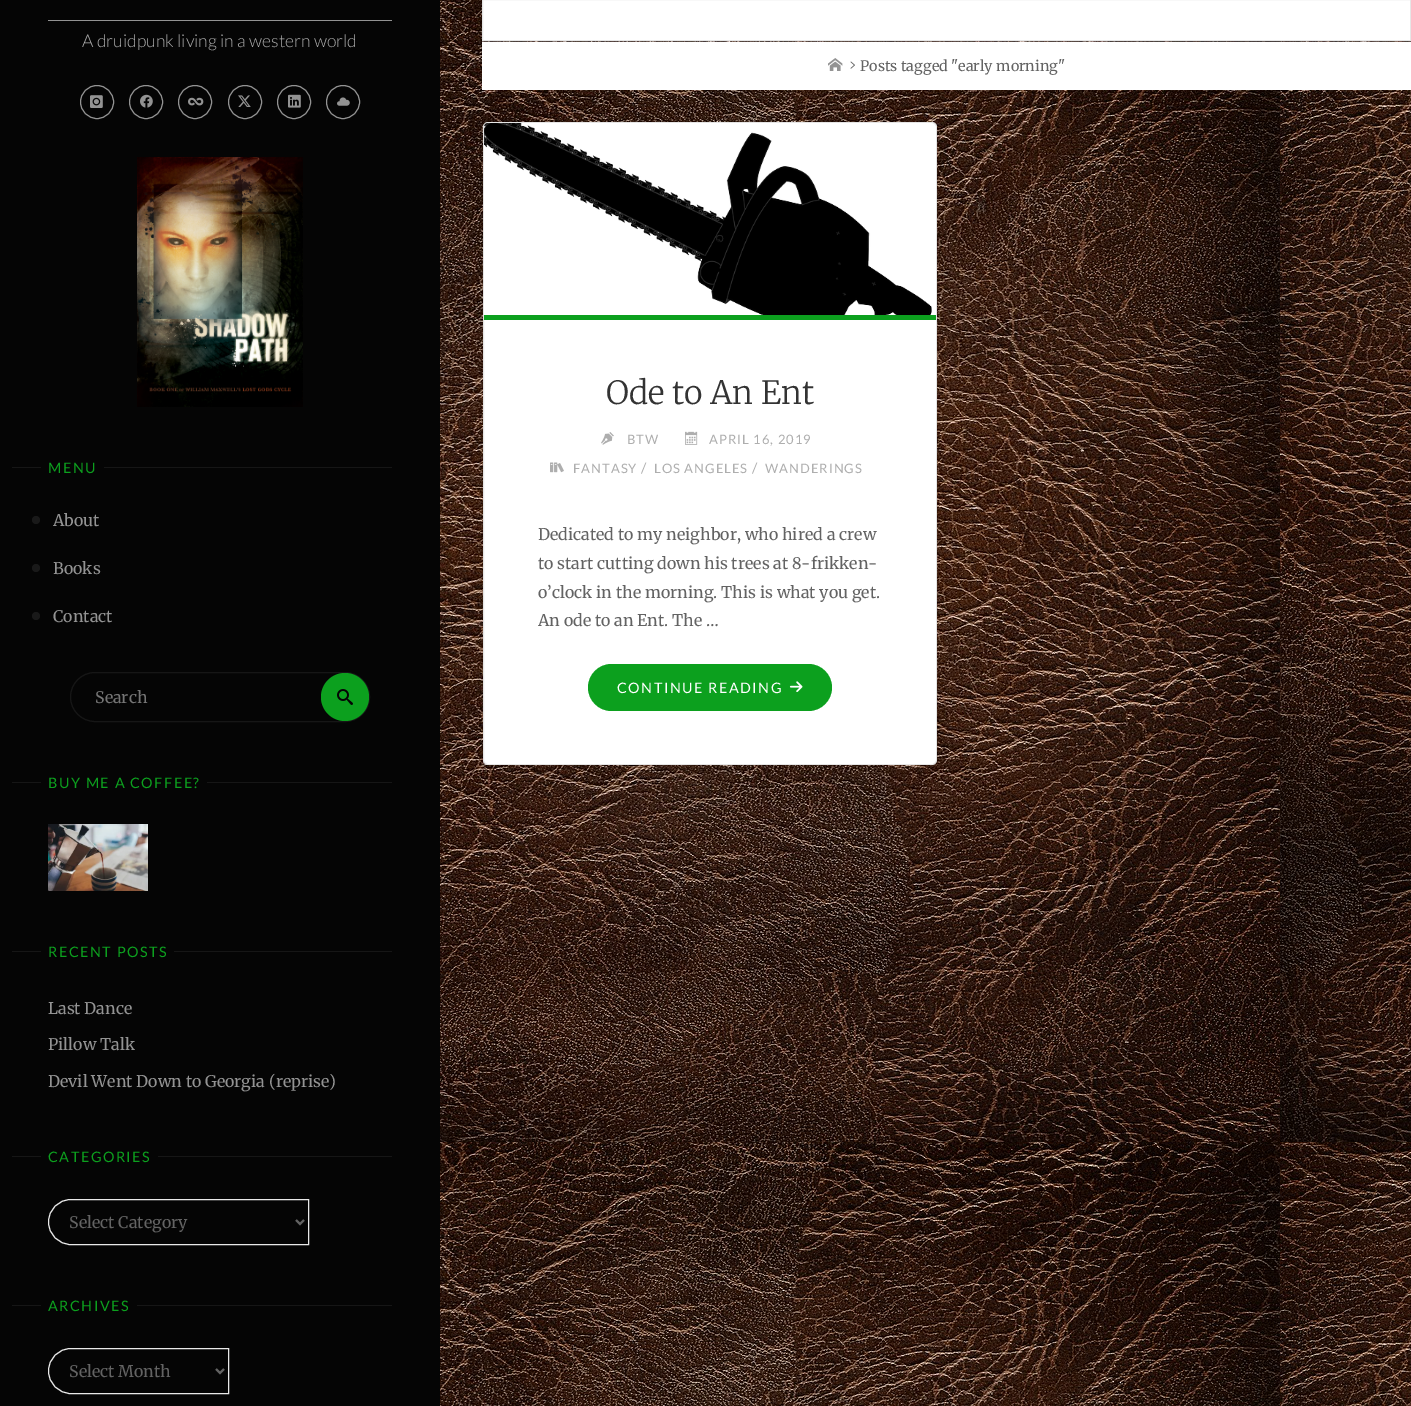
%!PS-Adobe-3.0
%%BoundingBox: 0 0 1411 1406
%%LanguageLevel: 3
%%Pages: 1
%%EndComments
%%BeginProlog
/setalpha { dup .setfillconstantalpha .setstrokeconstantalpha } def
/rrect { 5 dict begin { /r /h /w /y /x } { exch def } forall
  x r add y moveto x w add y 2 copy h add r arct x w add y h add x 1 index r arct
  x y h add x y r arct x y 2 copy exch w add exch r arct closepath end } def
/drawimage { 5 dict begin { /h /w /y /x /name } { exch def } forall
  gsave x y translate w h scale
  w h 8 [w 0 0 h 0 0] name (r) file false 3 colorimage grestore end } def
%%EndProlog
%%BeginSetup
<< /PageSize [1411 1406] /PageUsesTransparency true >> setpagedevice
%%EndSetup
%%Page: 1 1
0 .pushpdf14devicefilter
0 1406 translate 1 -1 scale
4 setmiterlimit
1 setgray
0 0 1411 1406 rectfill
(images/1.raw) 440 0 971 1406 drawimage
0.02 setgray
0 0 440 1406 rectfill
0.576 setgray
48 20 344 1 rectfill
newpath 97 102 16.5 0 360 arc closepath stroke
(images/2.raw) 90 95 13 13 drawimage
newpath 146 102 16.5 0 360 arc closepath stroke
(images/3.raw) 140 94 13 14 drawimage
newpath 195 102 16.5 0 360 arc closepath stroke
(images/4.raw) 188 97 16 9 drawimage
newpath 245 102 16.5 0 360 arc closepath stroke
(images/5.raw) 238 95 13 12 drawimage
newpath 294 102 16.5 0 360 arc closepath stroke
(images/6.raw) 288 94 13 14 drawimage
newpath 343 102 16.5 0 360 arc closepath stroke
(images/7.raw) 337 97 13 9 drawimage
(images/8.raw) 137 157 166 250 drawimage
0.086 setgray
12 467 380 1 rectfill
0.02 setgray
41 467 63 1 rectfill
0.098 setgray
newpath 36 520 4 0 360 arc closepath fill
newpath 36 568 4 0 360 arc closepath fill
newpath 36 616 4 0 360 arc closepath fill
0.086 setgray
70.5 672.5 299 49 24.5 rrect stroke
0.047 0.627 0.118 setrgbcolor
newpath 345 697 24 0 360 arc closepath fill
(images/9.raw) 337 689 16 16 drawimage
0.086 setgray
12 782 380 1 rectfill
0.02 setgray
41 782 166 1 rectfill
(images/10.raw) 48 824 100 67 drawimage
0.086 setgray
12 951 380 1 rectfill
0.02 setgray
41 951 133 1 rectfill
0.086 setgray
12 1156 380 1 rectfill
0.02 setgray
41 1156 117 1 rectfill
0.914 setgray
newpath 71 1199.5 moveto 308.5 1199.5 lineto 308.5 1244.5 lineto 71 1244.5 lineto 58.5 1244.5 48.5 1234.5 48.5 1222 curveto 48.5 1209.5 58.5 1199.5 71 1199.5 curveto closepath stroke
0.388 setgray
2 setlinewidth
newpath 296 1220 moveto 300 1224 lineto 304 1220 lineto stroke
0.086 setgray
12 1305 380 1 rectfill
0.02 setgray
41 1305 96 1 rectfill
0.914 setgray
1 setlinewidth
newpath 71 1348.5 moveto 228.5 1348.5 lineto 228.5 1393.5 lineto 71 1393.5 lineto 58.5 1393.5 48.5 1383.5 48.5 1371 curveto 48.5 1358.5 58.5 1348.5 71 1348.5 curveto closepath stroke
0.388 setgray
2 setlinewidth
newpath 216 1369 moveto 220 1373 lineto 224 1369 lineto stroke
1 setgray
newpath 482.5 -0.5 moveto 1410.5 -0.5 lineto 1410.5 40.5 lineto 482.5 40.5 lineto closepath gsave fill grestore
0.902 setgray
1 setlinewidth
stroke
1 setgray
482 42 929 48 rectfill
(images/11.raw) 828 58 15 13 drawimage
(images/12.raw) 850 61 5 8 drawimage
483 122 454 643 5 rrect fill
0.1 setalpha
0 setgray
483.5 122.5 453 642 4.5 rrect stroke
1 setalpha
(images/13.raw) 484 123 448 192 drawimage
0.047 0.627 0.118 setrgbcolor
484 315 452 5 rectfill
(images/14.raw) 601 432 13 13 drawimage
(images/15.raw) 685 431 13 14 drawimage
(images/16.raw) 550 462 14 11 drawimage
588 664 244 47 23.5 rrect fill
(images/17.raw) 789 681 14 11 drawimage
/Lato-Light [17.6 0 0 -17.6 0 0] selectfont
0.682 setgray
82 47 moveto (A druidpunk living in a western world) show
/Lato-Regular [14.4 0 0 -14.4 0 0] selectfont
0.047 0.627 0.118 setrgbcolor
48 473 moveto 1.5 0 (MENU) ashow
/Merriweather-Regular [16 0 0 -16 0 0] selectfont
0.576 setgray
53 526 moveto (About) show
53 574 moveto (Books) show
53 622 moveto (Contact) show
0.459 setgray
95 703 moveto (Search) show
/Lato-Regular [14.4 0 0 -14.4 0 0] selectfont
0.047 0.627 0.118 setrgbcolor
48 788 moveto 1.5 0 (BUY ME A COFFEE?) ashow
48 957 moveto 1.5 0 (RECENT POSTS) ashow
/Merriweather-Regular [16 0 0 -16 0 0] selectfont
0.576 setgray
48 1014 moveto (Last Dance) show
48 1050 moveto (Pillow Talk) show
48 1087 moveto (Devil Went Down to Georgia \(reprise\)) show
/Lato-Regular [14.4 0 0 -14.4 0 0] selectfont
0.047 0.627 0.118 setrgbcolor
48 1162 moveto 1.5 0 (CATEGORIES) ashow
/Merriweather-Regular [16 0 0 -16 0 0] selectfont
0.388 setgray
69 1228 moveto (Select Category) show
/Lato-Regular [14.4 0 0 -14.4 0 0] selectfont
0.047 0.627 0.118 setrgbcolor
48 1311 moveto 1.5 0 (ARCHIVES) ashow
/Merriweather-Regular [16 0 0 -16 0 0] selectfont
0.388 setgray
69 1377 moveto (Select Month) show
/Merriweather-Regular [14.4 0 0 -14.4 0 0] selectfont
860 71 moveto (Posts tagged "early morning") show
/Merriweather-Light [32 0 0 -32 0 0] selectfont
0.2 setgray
606 404 moveto (Ode to An Ent) show
/Lato-Regular [13 0 0 -13 0 0] selectfont
0.682 setgray
627 444 moveto 1 0 (BTW) ashow
709 444 moveto 1 0 (APRIL 16, 2019) ashow
573 473 moveto 1 0 (FANTASY) ashow
/Lato-Regular [14.4 0 0 -14.4 0 0] selectfont
641 473 moveto 1 0 (/) ashow
/Lato-Regular [13 0 0 -13 0 0] selectfont
654 473 moveto 1 0 (LOS ANGELES) ashow
/Lato-Regular [14.4 0 0 -14.4 0 0] selectfont
752 473 moveto 1 0 (/) ashow
/Lato-Regular [13 0 0 -13 0 0] selectfont
765 473 moveto 1 0 (WANDERINGS) ashow
/Merriweather-Regular [16 0 0 -16 0 0] selectfont
0.388 setgray
538 540 moveto (Dedicated to my neighbor, who hired a crew) show
538 569 moveto (to start cutting down his trees at 8-frikken-) show
538 598 moveto (o’clock in the morning. This is what you get.) show
538 626 moveto (An ode to an Ent. The …) show
/Lato-Regular [14.4 0 0 -14.4 0 0] selectfont
1 setgray
617 693 moveto 1.5 0 (CONTINUE READING) ashow
.poppdf14devicefilter showpage
%%EOF
